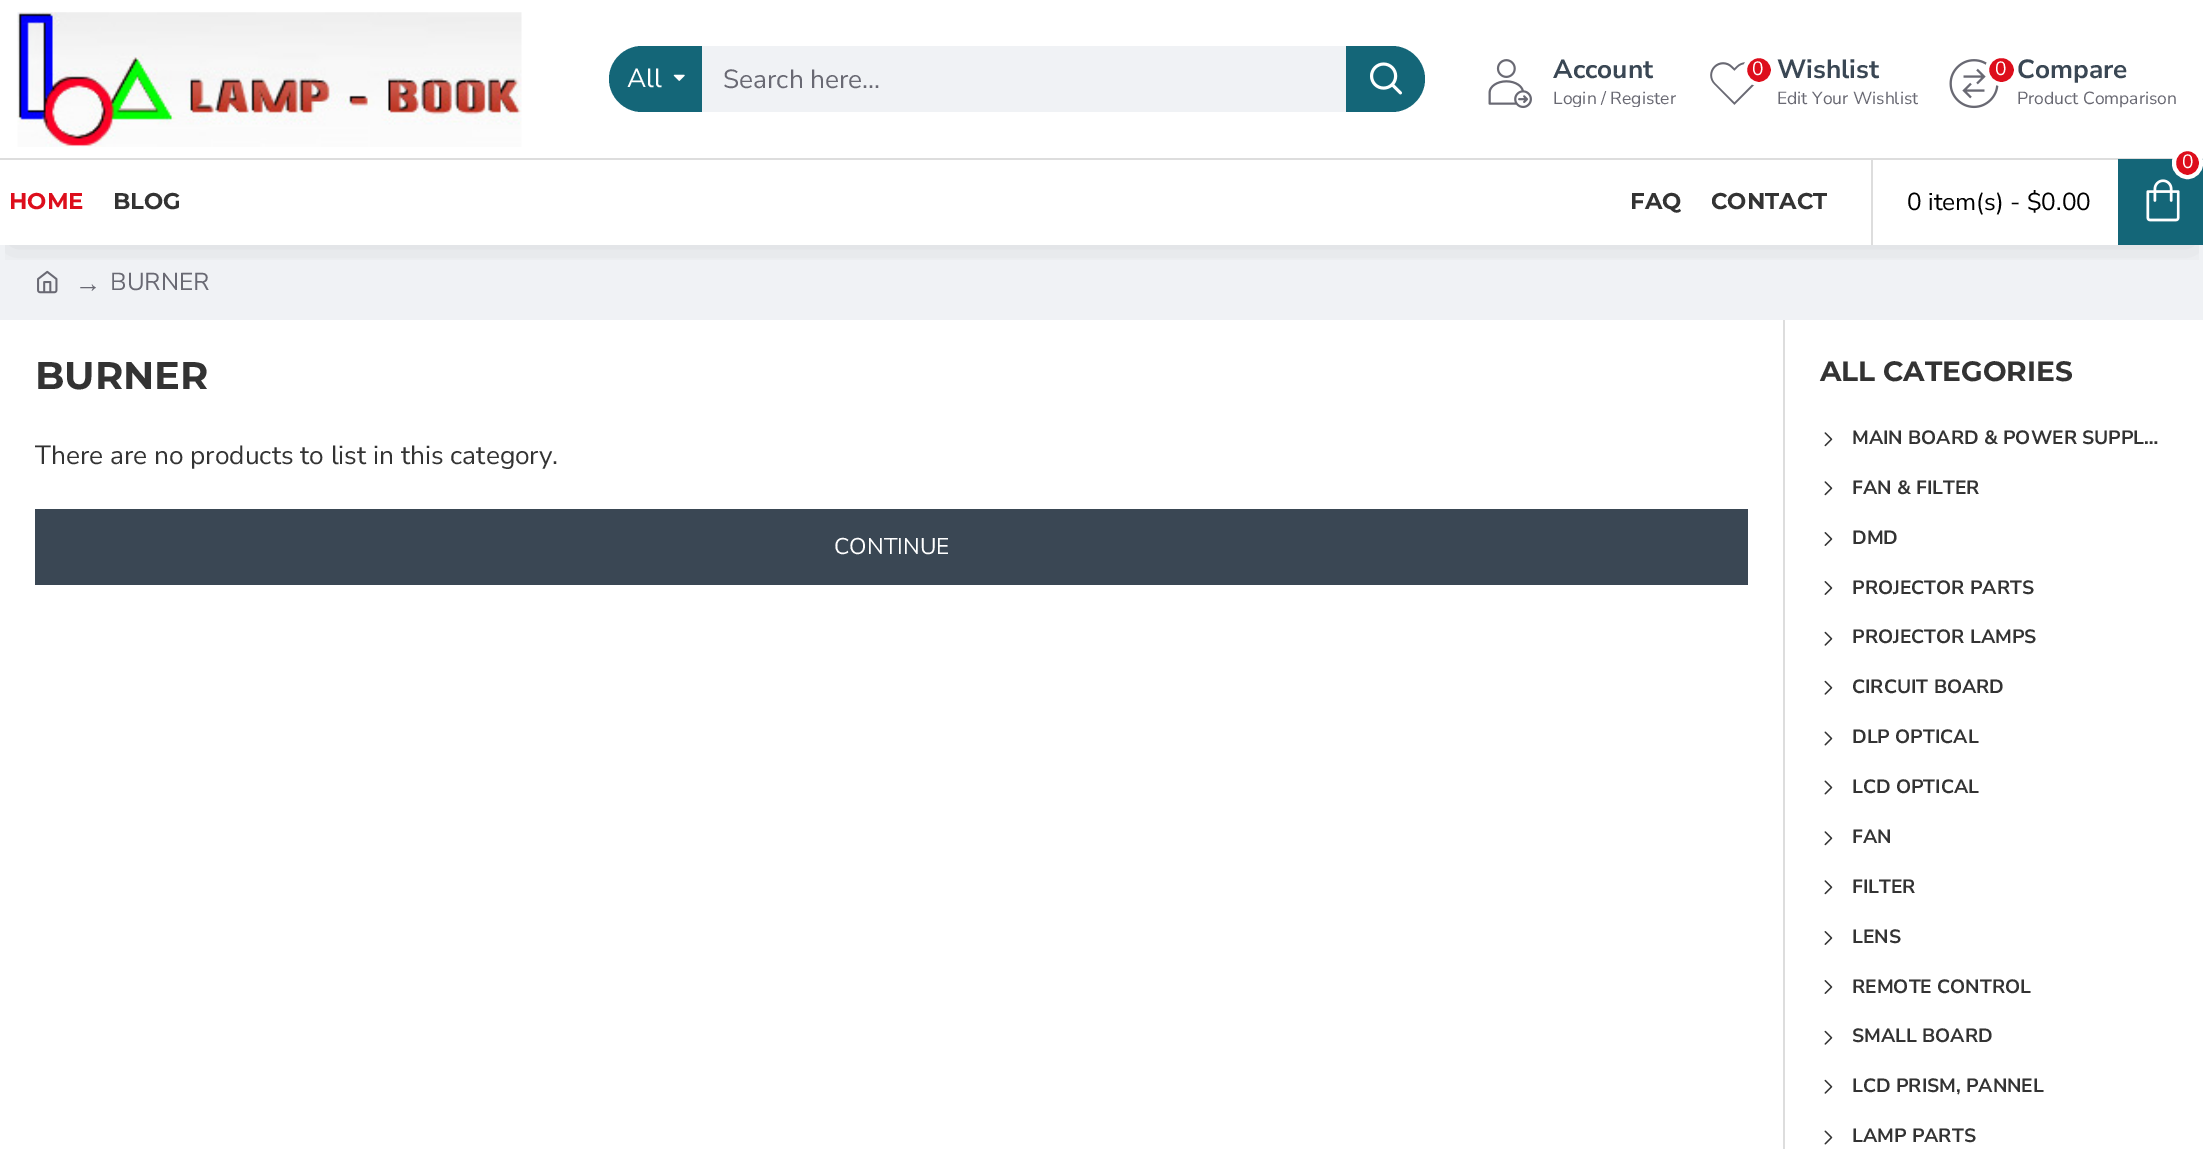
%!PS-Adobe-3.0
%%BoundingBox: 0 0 2203 1149
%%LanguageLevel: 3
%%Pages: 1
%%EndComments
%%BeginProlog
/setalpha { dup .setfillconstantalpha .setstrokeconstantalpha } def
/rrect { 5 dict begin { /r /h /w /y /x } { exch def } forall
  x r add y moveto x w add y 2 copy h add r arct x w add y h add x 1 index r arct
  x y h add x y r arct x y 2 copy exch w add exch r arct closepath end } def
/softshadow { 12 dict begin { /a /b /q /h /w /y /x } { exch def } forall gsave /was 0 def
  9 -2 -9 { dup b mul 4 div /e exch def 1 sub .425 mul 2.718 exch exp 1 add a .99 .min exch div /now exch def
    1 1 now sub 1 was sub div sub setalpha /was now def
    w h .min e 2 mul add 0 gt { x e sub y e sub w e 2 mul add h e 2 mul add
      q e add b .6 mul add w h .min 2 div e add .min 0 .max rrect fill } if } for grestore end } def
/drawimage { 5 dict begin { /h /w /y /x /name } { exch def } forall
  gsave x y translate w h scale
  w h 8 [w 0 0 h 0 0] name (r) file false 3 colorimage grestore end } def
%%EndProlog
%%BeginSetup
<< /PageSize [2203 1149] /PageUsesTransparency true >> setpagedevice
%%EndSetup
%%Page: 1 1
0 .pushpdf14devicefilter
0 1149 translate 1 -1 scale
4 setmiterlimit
1 setgray
0 0 2203 1149 rectfill
0.941 0.949 0.961 setrgbcolor
0 245 2203 75 rectfill
(images/8.raw) 37 270 21 24 drawimage
gsave
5 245 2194 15 rectclip
0 setgray
9 18 2186 227 0 17.5 0.1 softshadow
grestore
(images/1.raw) 17 12 505 135 drawimage
0.078 0.4 0.471 setrgbcolor
newpath 642 46 moveto 702 46 lineto 702 112 lineto 642 112 lineto 624 112 609 97 609 79 curveto 609 61 624 46 642 46 curveto closepath fill
(images/2.raw) 673 74 12 7 drawimage
0.941 0.949 0.961 setrgbcolor
702 46 644 66 rectfill
0.078 0.4 0.471 setrgbcolor
newpath 1346 46 moveto 1392 46 lineto 1410 46 1425 61 1425 79 curveto 1425 97 1410 112 1392 112 curveto 1346 112 lineto closepath fill
(images/3.raw) 1370 62 32 33 drawimage
(images/4.raw) 1488 59 44 50 drawimage
(images/5.raw) 1710 62 45 43 drawimage
0.867 0.055 0.11 setrgbcolor
newpath 1759 70 14 0 360 arc closepath gsave fill grestore
1 setgray
4 setlinewidth
stroke
(images/6.raw) 1949 59 50 50 drawimage
0.867 0.055 0.11 setrgbcolor
1987 56 29 28 14 rrect gsave fill grestore
1 setgray
stroke
0.867 setgray
0 158 2203 2 rectfill
1871 158 2 87 rectfill
0.078 0.4 0.471 setrgbcolor
2118 159 85 86 rectfill
0.867 0.055 0.11 setrgbcolor
2174 149 27 28 13.5 rrect gsave fill grestore
1 setgray
stroke
(images/7.raw) 2146 179 34 43 drawimage
0.227 0.278 0.329 setrgbcolor
35 509 1713 76 rectfill
0.867 setgray
1783 320 2 829 rectfill
(images/9.raw) 1824 432 9 15 drawimage
(images/9.raw) 1824 481 9 15 drawimage
(images/10.raw) 1824 532 9 14 drawimage
(images/10.raw) 1824 581 9 14 drawimage
(images/11.raw) 1824 631 9 15 drawimage
(images/11.raw) 1824 680 9 15 drawimage
(images/12.raw) 1824 731 9 15 drawimage
(images/12.raw) 1824 780 9 15 drawimage
(images/9.raw) 1824 831 9 15 drawimage
(images/9.raw) 1824 880 9 15 drawimage
(images/10.raw) 1824 931 9 14 drawimage
(images/10.raw) 1824 980 9 14 drawimage
(images/11.raw) 1824 1030 9 15 drawimage
(images/11.raw) 1824 1079 9 15 drawimage
(images/12.raw) 1824 1130 9 15 drawimage
/NunitoSans-Regular [26.25 0 0 -26.25 0 0] selectfont
1 setgray
627 87 moveto (All) show
0.412 0.412 0.451 setrgbcolor
723 88 moveto (Search here...) show
/NunitoSans-Bold [26.25 0 0 -26.25 0 0] selectfont
0.227 0.278 0.329 setrgbcolor
1553 78 moveto (Account) show
gsave
1552 51 125 56 rectclip
/NunitoSans-Regular [17.5 0 0 -17.5 0 0] selectfont
0.412 0.412 0.451 setrgbcolor
1553 104 moveto (Login / Register) show
grestore
/NunitoSans-Regular [19.25 0 0 -19.25 0 0] selectfont
1 setgray
1752 75 moveto (0) show
/NunitoSans-Bold [26.25 0 0 -26.25 0 0] selectfont
0.227 0.278 0.329 setrgbcolor
1777 78 moveto (Wishlist) show
gsave
1778 51 140 56 rectclip
/NunitoSans-Regular [17.5 0 0 -17.5 0 0] selectfont
0.412 0.412 0.451 setrgbcolor
1777 104 moveto (Edit Your Wishlist) show
grestore
/NunitoSans-Regular [19.25 0 0 -19.25 0 0] selectfont
1 setgray
1995 75 moveto (0) show
/NunitoSans-Bold [26.25 0 0 -26.25 0 0] selectfont
0.227 0.278 0.329 setrgbcolor
2017 78 moveto (Compare) show
/NunitoSans-Regular [17.5 0 0 -17.5 0 0] selectfont
0.412 0.412 0.451 setrgbcolor
2017 104 moveto (Product Comparison) show
/NunitoSans-Regular [19.25 0 0 -19.25 0 0] selectfont
1 setgray
2182 168 moveto (0) show
/NunitoSans-Regular [24.5 0 0 -24.5 0 0] selectfont
0 setgray
1907 210 moveto (0 item\(s\) - $0.00) show
/Montserrat-Bold [22.75 0 0 -22.75 0 0] selectfont
0.867 0.055 0.11 setrgbcolor
9 209 moveto (HOME) show
0.2 setgray
113 209 moveto (BLOG) show
1630 209 moveto (FAQ) show
gsave
1712 184 115 35 rectclip
1711 209 moveto (CONTACT) show
grestore
/LiberationSerif-Regular [26.25 0 0 -26.25 0 0] selectfont
0.412 0.412 0.451 setrgbcolor
75 292 moveto (→) show
/NunitoSans-Regular [24.5 0 0 -24.5 0 0] selectfont
110 290 moveto (BURNER) show
/Montserrat-Bold [38.5 0 0 -38.5 0 0] selectfont
0.2 setgray
35 389 moveto (BURNER) show
/NunitoSans-Regular [26.25 0 0 -26.25 0 0] selectfont
35 464 moveto (There are no products to list in this category.) show
/NunitoSans-Regular [22.75 0 0 -22.75 0 0] selectfont
1 setgray
834 554 moveto (CONTINUE) show
/Montserrat-Bold [28 0 0 -28 0 0] selectfont
0.2 setgray
1820 381 moveto (ALL CATEGORIES) show
/NunitoSans-Bold [19.25 0 0 -19.25 0 0] selectfont
1852 444 moveto (MAIN BOARD & POWER SUPPL…) show
1852 494 moveto (FAN & FILTER) show
1852 544 moveto (DMD) show
1852 594 moveto (PROJECTOR PARTS) show
1852 643 moveto (PROJECTOR LAMPS) show
1852 693 moveto (CIRCUIT BOARD) show
1852 743 moveto (DLP OPTICAL) show
1852 793 moveto (LCD OPTICAL) show
1852 843 moveto (FAN) show
1852 893 moveto (FILTER) show
1852 943 moveto (LENS) show
1852 993 moveto (REMOTE CONTROL) show
1852 1042 moveto (SMALL BOARD) show
1852 1092 moveto (LCD PRISM, PANNEL) show
1852 1142 moveto (LAMP PARTS) show
.poppdf14devicefilter showpage
%%EOF
